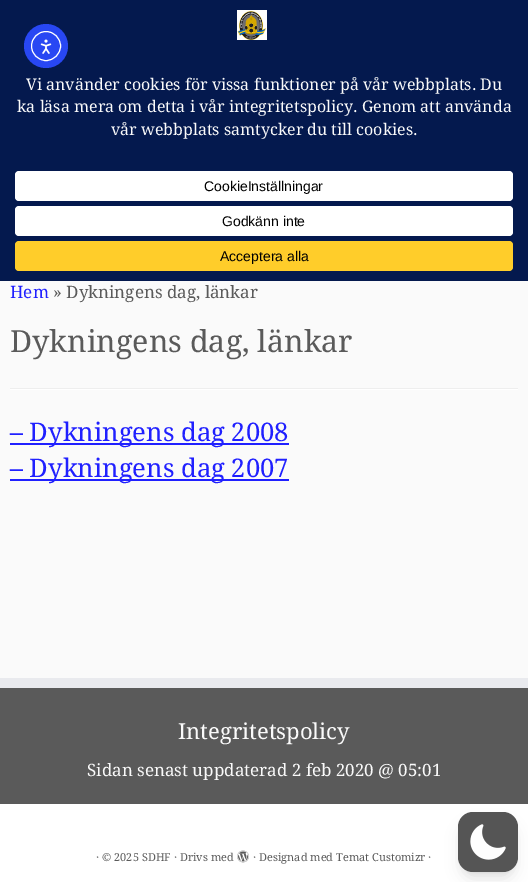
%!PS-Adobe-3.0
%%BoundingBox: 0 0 528 882
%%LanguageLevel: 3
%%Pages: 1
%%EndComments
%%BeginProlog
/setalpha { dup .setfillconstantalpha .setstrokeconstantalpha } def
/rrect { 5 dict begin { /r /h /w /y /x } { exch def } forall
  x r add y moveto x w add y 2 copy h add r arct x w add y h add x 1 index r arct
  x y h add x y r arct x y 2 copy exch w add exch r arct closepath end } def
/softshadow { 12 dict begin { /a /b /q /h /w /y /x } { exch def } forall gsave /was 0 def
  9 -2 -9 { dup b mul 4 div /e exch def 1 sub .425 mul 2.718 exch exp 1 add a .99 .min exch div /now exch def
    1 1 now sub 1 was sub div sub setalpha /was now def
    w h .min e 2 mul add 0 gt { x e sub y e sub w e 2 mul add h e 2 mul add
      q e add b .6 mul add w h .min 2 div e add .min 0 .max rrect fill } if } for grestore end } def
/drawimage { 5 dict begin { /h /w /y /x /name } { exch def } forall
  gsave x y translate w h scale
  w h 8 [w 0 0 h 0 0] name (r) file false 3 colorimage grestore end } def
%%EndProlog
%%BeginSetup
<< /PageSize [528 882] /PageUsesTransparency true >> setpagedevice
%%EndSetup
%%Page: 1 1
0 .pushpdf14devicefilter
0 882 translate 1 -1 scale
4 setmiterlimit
0.98 setgray
0 0 528 882 rectfill
0.016 0.098 0.306 setrgbcolor
0 0 528 281 rectfill
0.157 0.278 0.953 setrgbcolor
newpath 46 46 22 0 360 arc closepath fill
1 setgray
newpath 46 46 14.5 0 360 arc closepath stroke
(images/1.raw) 40 39 12 15 drawimage
(images/2.raw) 237 10 30 30 drawimage
15 171 498 30 4 rrect fill
15 206 498 30 4 rrect fill
1 0.804 0.165 setrgbcolor
15 241 498 30 4 rrect fill
0.933 setgray
10 388 508 1 rectfill
1 setgray
10 389 508 1 rectfill
0.125 0.125 1 setrgbcolor
10 443 279 2 rectfill
10 479 279 2 rectfill
0.353 setgray
0 688 528 116 rectfill
0.914 0.918 0.933 setrgbcolor
0 678 528 10 rectfill
1 setgray
0 804 528 78 rectfill
(images/3.raw) 237 850 12 13 drawimage
0 setgray
462 820 52 52 11 3 0.1 softshadow
461 825 54 54 12 7.5 0.1 softshadow
0.333 setgray
458 812 60 60 15 rrect fill
(images/4.raw) 470 824 36 36 drawimage
/DroidSerif-Regular [16 0 0 -16 0 0] selectfont
0.98 setgray
26 90 moveto (Vi använder cookies för vissa funktioner på vår webbplats. Du) show
17 112 moveto (ka läsa mera om detta i vår integritetspolicy. Genom att använda) show
111 135 moveto (vår webbplats samtycker du till cookies.) show
/LiberationSans-Regular [14 0 0 -14 0 0] selectfont
0 setgray
204 191 moveto (CookieInställningar) show
222 226 moveto (Godkänn inte) show
220 261 moveto (Acceptera alla) show
/DroidSerif-Regular [17 0 0 -17 0 0] selectfont
0.125 0.125 1 setrgbcolor
10 298 moveto (Hem) show
0.353 setgray
53 298 moveto (» Dykningens dag, länkar) show
/DroidSerif-Regular [30.4 0 0 -30.4 0 0] selectfont
10 352 moveto (Dykningens dag, länkar) show
/DroidSerif-Regular [25.6 0 0 -25.6 0 0] selectfont
0.125 0.125 1 setrgbcolor
10 441 moveto (– Dykningens dag 2008) show
10 477 moveto (– Dykningens dag 2007) show
/DroidSerif-Regular [22 0 0 -22 0 0] selectfont
0.98 setgray
178 739 moveto (Integritetspolicy) show
/DroidSerif-Regular [17 0 0 -17 0 0] selectfont
87 776 moveto (Sidan senast uppdaterad 2 feb 2020 @ 05:01) show
/DroidSerif-Regular [11 0 0 -11 0 0] selectfont
0.353 setgray
96 861 moveto (· © 2025 SDHF · Drivs med) show
253 861 moveto (· Designad med Temat Customizr ·) show
.poppdf14devicefilter showpage
%%EOF
